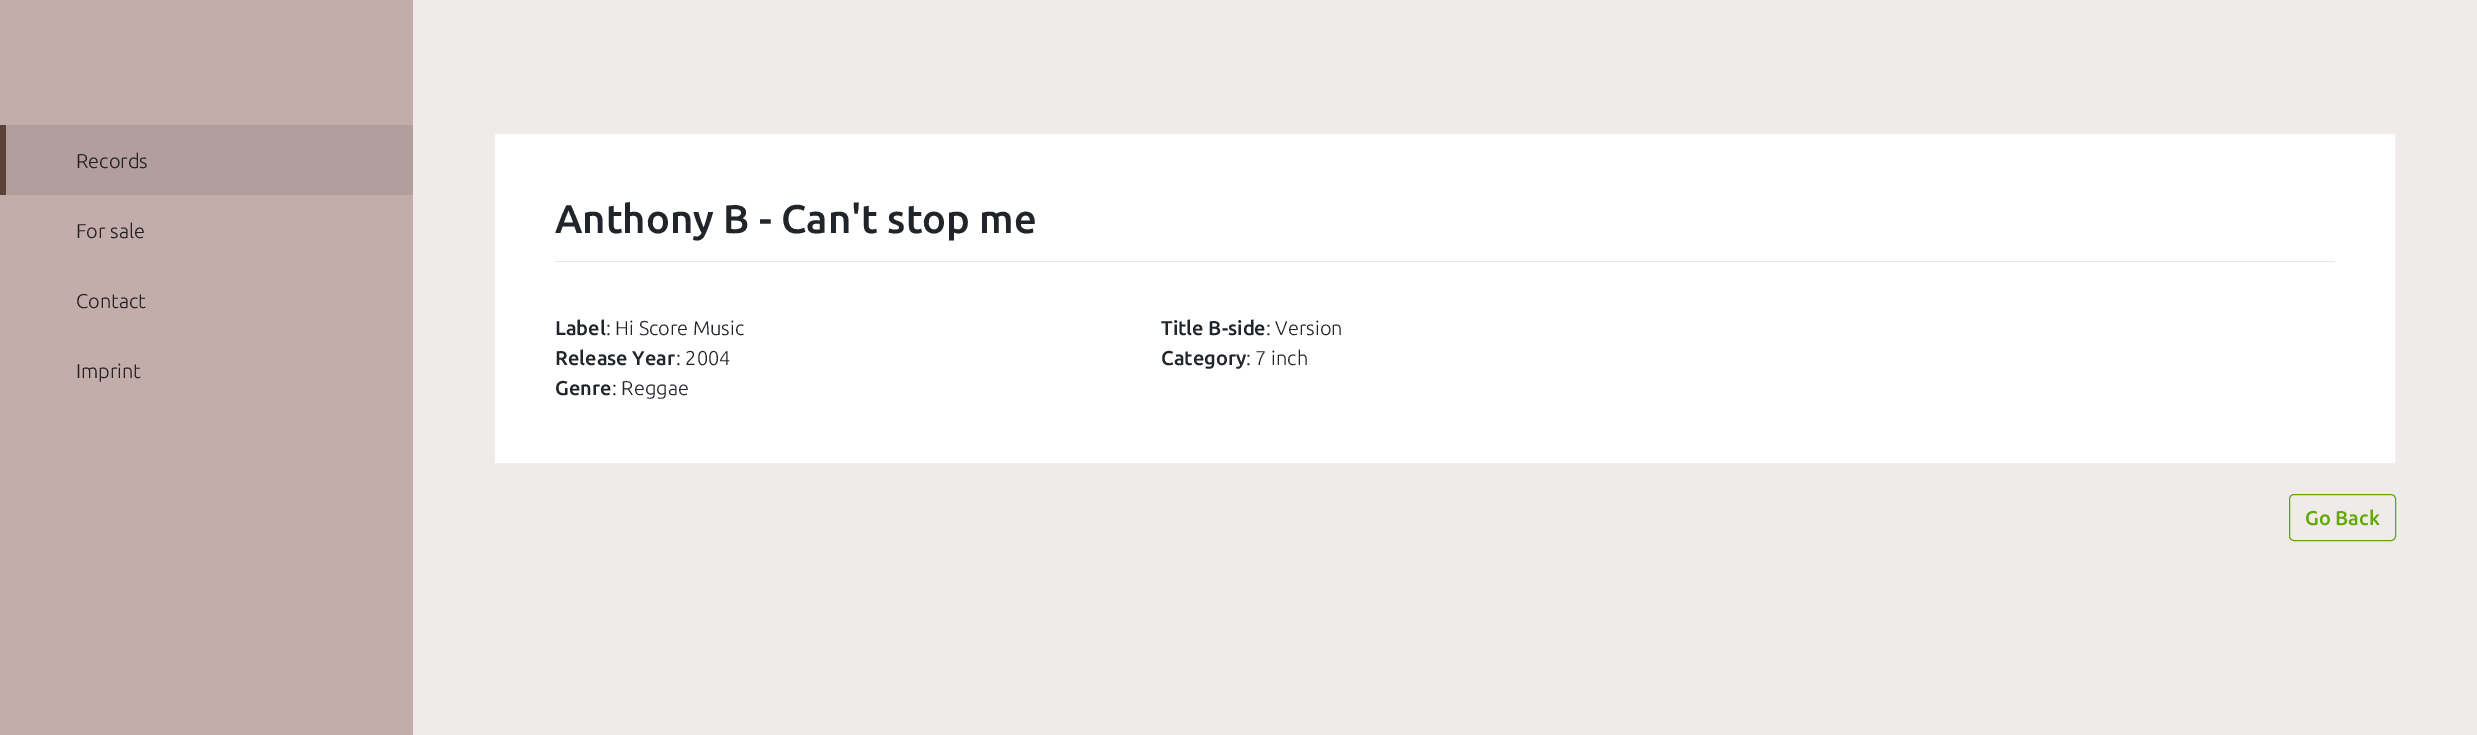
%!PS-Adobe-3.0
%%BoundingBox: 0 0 2477 735
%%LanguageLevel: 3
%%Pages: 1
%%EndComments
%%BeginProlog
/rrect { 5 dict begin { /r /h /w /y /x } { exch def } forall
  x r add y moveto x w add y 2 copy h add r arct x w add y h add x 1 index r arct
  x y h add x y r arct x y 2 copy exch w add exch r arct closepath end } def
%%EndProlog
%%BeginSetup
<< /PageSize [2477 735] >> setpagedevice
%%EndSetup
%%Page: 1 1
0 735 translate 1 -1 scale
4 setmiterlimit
0.941 0.922 0.922 setrgbcolor
0 0 2477 735 rectfill
0.761 0.678 0.667 setrgbcolor
0 0 413 735 rectfill
0.698 0.624 0.616 setrgbcolor
6 125 407 70 rectfill
0.365 0.251 0.216 setrgbcolor
0 125 6 70 rectfill
1 setgray
newpath 494.5 133.5 moveto 2395.5 133.5 lineto 2395.5 463.5 lineto 494.5 463.5 lineto closepath gsave fill grestore
0.949 0.941 0.937 setrgbcolor
stroke
0.902 setgray
555 261 1780 1 rectfill
0.388 0.663 0.012 setrgbcolor
2289.5 494.5 106 46 4.5 rrect stroke
/Ubuntu-Light [20 0 0 -20 0 0] selectfont
0.133 0.118 0.133 setrgbcolor
76 168 moveto (Records) show
76 238 moveto (For sale) show
76 308 moveto (Contact) show
76 378 moveto (Imprint) show
/Ubuntu-Medium [40 0 0 -40 0 0] selectfont
0.129 0.145 0.161 setrgbcolor
555 233 moveto (Anthony B - Can't stop me) show
/Ubuntu-Medium [20 0 0 -20 0 0] selectfont
555 335 moveto (Label) show
/Ubuntu-Light [20 0 0 -20 0 0] selectfont
606 335 moveto (: Hi Score Music) show
/Ubuntu-Medium [20 0 0 -20 0 0] selectfont
555 365 moveto (Release Year) show
/Ubuntu-Light [20 0 0 -20 0 0] selectfont
676 365 moveto (: 2004) show
/Ubuntu-Medium [20 0 0 -20 0 0] selectfont
555 395 moveto (Genre) show
/Ubuntu-Light [20 0 0 -20 0 0] selectfont
612 395 moveto (: Reggae) show
/Ubuntu-Medium [20 0 0 -20 0 0] selectfont
1161 335 moveto (Title B-side) show
/Ubuntu-Light [20 0 0 -20 0 0] selectfont
1266 335 moveto (: Version) show
/Ubuntu-Medium [20 0 0 -20 0 0] selectfont
1161 365 moveto (Category) show
/Ubuntu-Light [20 0 0 -20 0 0] selectfont
1246 365 moveto (: 7 inch) show
/Ubuntu-Medium [20 0 0 -20 0 0] selectfont
0.388 0.663 0.012 setrgbcolor
2305 525 moveto (Go Back) show
showpage
%%EOF
